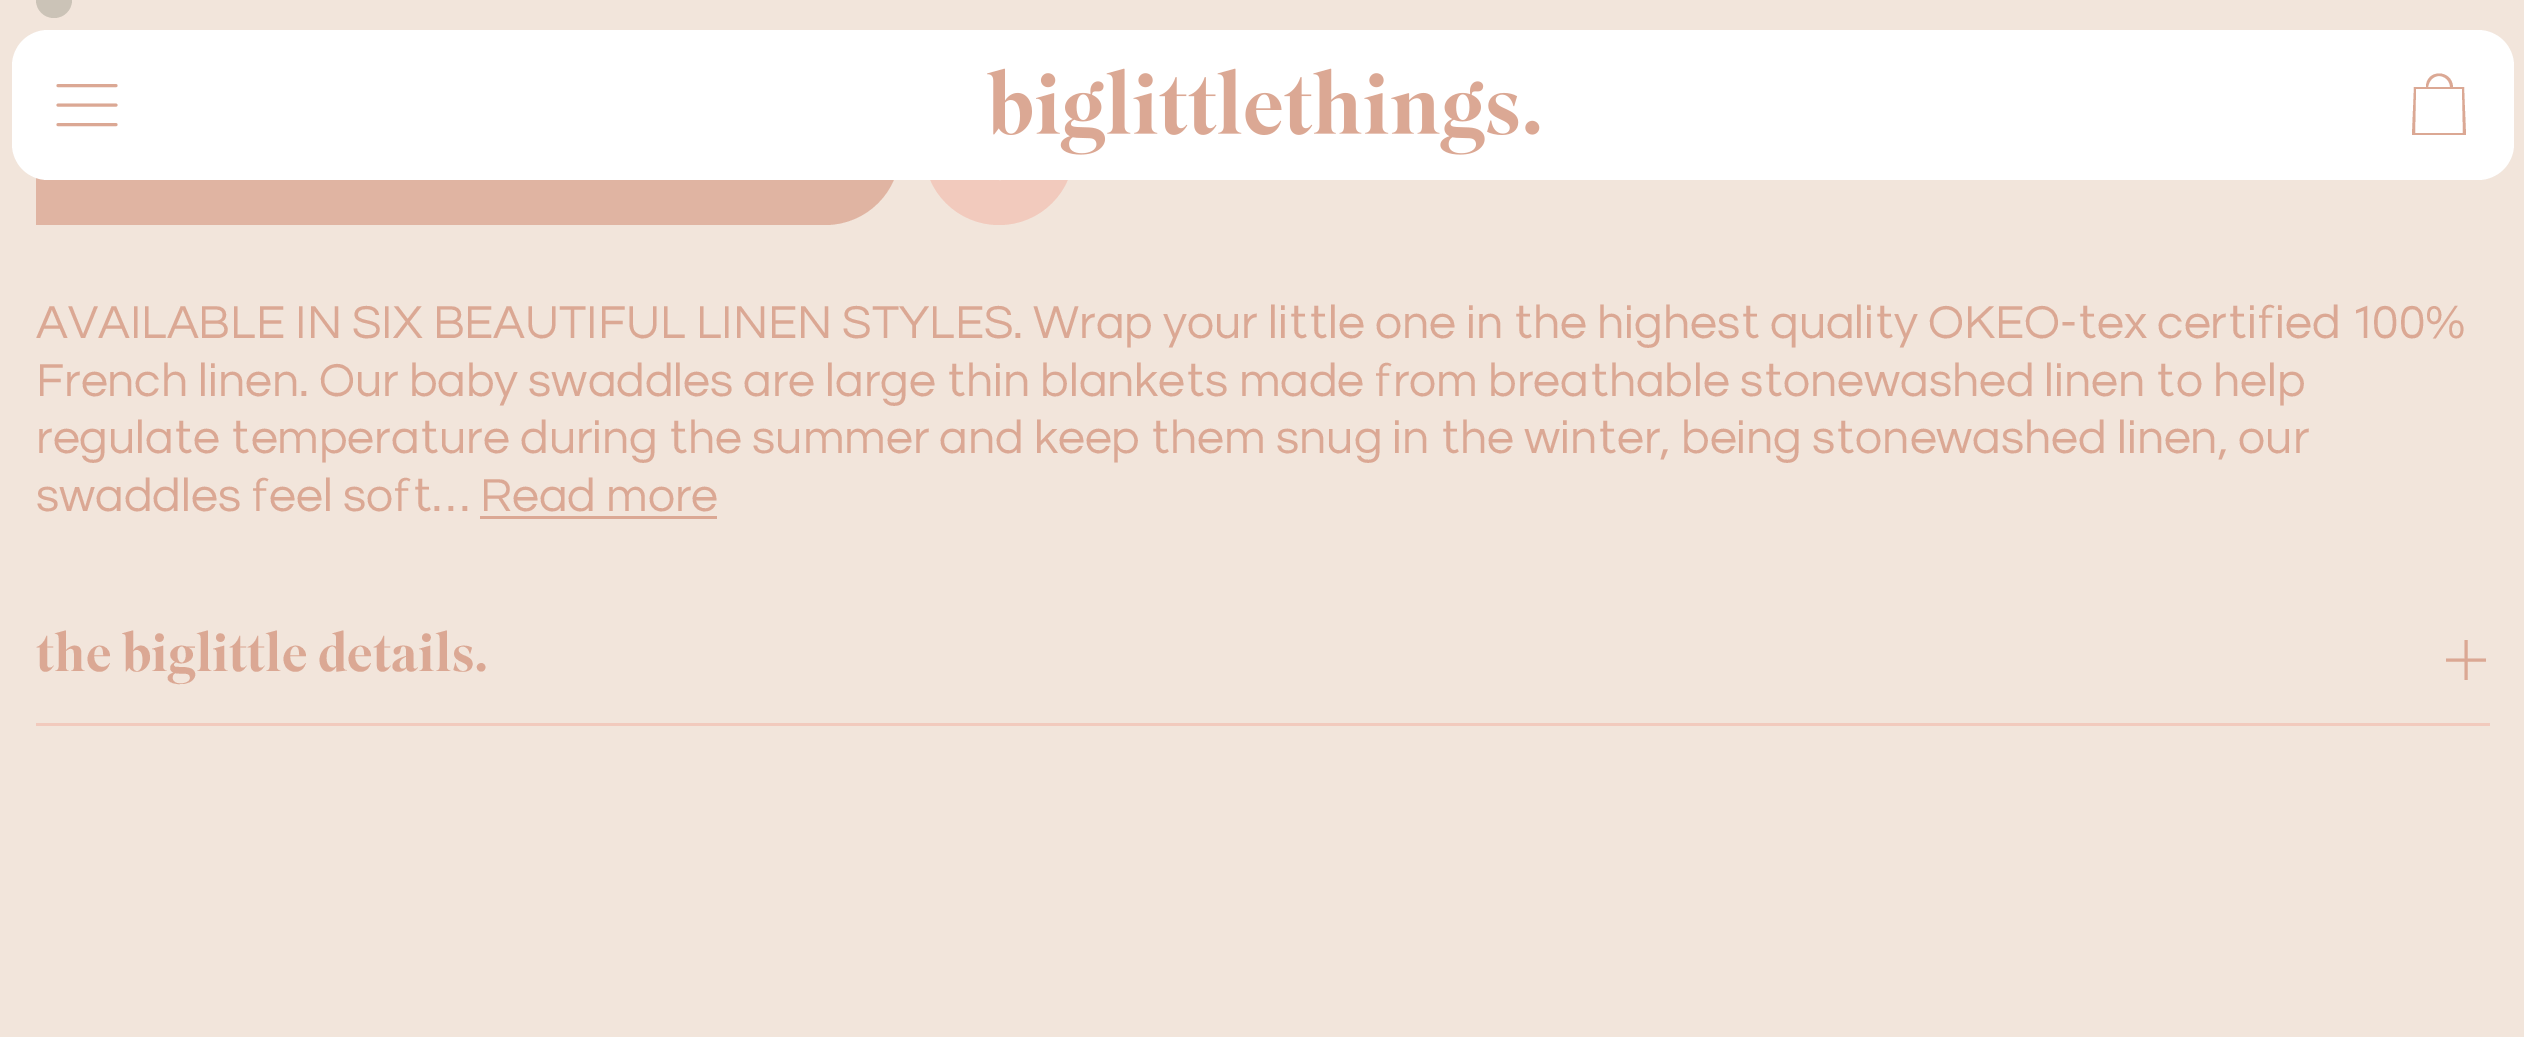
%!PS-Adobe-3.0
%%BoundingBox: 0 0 2524 1037
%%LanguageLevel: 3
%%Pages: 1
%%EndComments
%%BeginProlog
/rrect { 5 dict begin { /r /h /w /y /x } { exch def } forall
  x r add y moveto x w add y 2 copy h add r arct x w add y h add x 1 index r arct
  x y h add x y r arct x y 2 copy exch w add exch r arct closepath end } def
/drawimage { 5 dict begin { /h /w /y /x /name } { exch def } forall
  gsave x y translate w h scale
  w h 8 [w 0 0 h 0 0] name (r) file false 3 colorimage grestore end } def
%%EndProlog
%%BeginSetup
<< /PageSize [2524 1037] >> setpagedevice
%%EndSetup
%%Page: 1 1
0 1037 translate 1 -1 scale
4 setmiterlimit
0.949 0.898 0.859 setrgbcolor
0 0 2524 1037 rectfill
0.878 0.706 0.635 setrgbcolor
newpath 36 75 moveto 825 75 lineto 866.5 75 900 108.5 900 150 curveto 900 191.5 866.5 225 825 225 curveto 36 225 lineto closepath fill
0.949 0.792 0.741 setrgbcolor
newpath 999 150 75 0 360 arc closepath fill
1 setgray
3 setlinewidth
newpath 1000 178.5 moveto 987.5 172.5 974 163 970 149.5 curveto 966 134.5 977 119.5 992 126 curveto 995.5 127 997.5 129.5 1000 132.5 curveto 1002.5 129.5 1005 127 1008 126 curveto 1023 119.5 1034.5 134.5 1030 149 curveto 1026 163 1012.5 172.5 1000 178.5 curveto closepath stroke
12 30 2502 150 36 rrect fill
0.859 0.659 0.58 setrgbcolor
1 setlinecap
1 setlinejoin
newpath 58 105 moveto 116 105 lineto 58 85.5 moveto 116 85.5 lineto 58 124.5 moveto 116 124.5 lineto stroke
(images/1.raw) 987 68 553 87 drawimage
newpath 2419 133 moveto 2415 133 lineto 2416 89 lineto 2462 89 lineto 2463 133 lineto closepath 2439 76 moveto 2445 76 2450 81 2450 87 curveto 2428 87 lineto 2429 81 2433 76 2439 76 curveto closepath 2464 87 moveto 2453 87 lineto 2452 69 2426 69 2426 87 curveto 2414 87 lineto 2412 135 lineto 2466 135 lineto closepath eofill
0.796 0.765 0.718 setrgbcolor
newpath 54 0 18 0 360 arc closepath fill
0.859 0.659 0.58 setrgbcolor
480 516 237 3 rectfill
0.949 0.792 0.741 setrgbcolor
36 723 2454 3 rectfill
0.859 0.659 0.58 setrgbcolor
0 setlinecap
newpath 2446 660 moveto 2486 660 lineto 2466 640 moveto 2466 680 lineto stroke
/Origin-Regular [48 0 0 -48 0 0] selectfont
36 338 moveto (AVAILABLE IN SIX BEAUTIFUL LINEN STYLES. Wrap your little one in the highest quality OKEO-tex certified 100%) show
36 396 moveto (French linen. Our baby swaddles are large thin blankets made from breathable stonewashed linen to help) show
36 453 moveto (regulate temperature during the summer and keep them snug in the winter, being stonewashed linen, our) show
36 511 moveto (swaddles feel soft… Read more) show
/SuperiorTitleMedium-Medium [54 0 0 -54 0 0] selectfont
36 671 moveto (the biglittle details.) show
showpage
%%EOF
